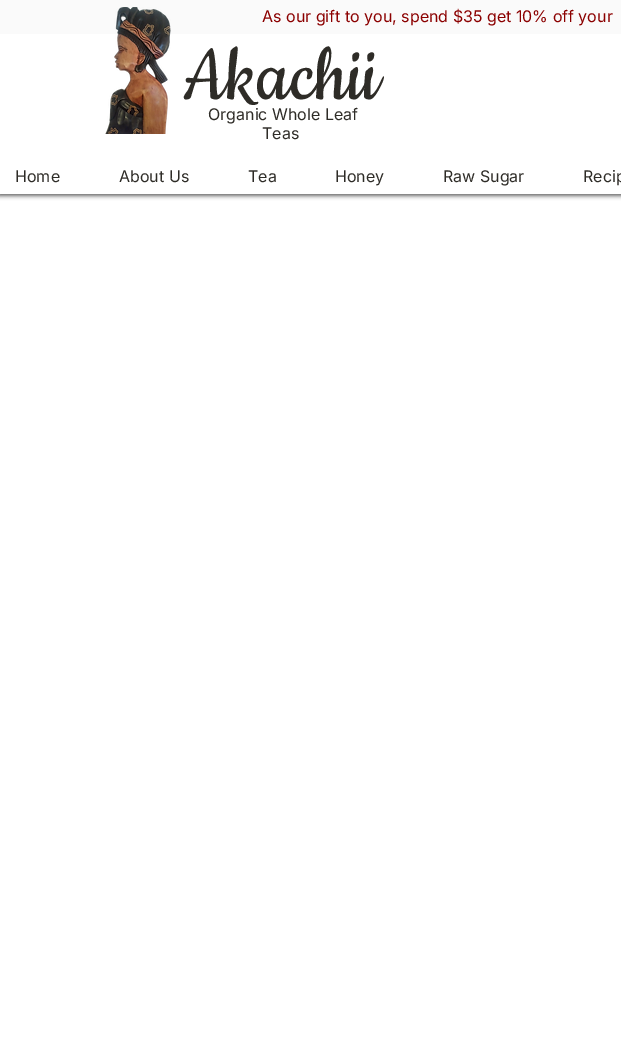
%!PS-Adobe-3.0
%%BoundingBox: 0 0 621 1046
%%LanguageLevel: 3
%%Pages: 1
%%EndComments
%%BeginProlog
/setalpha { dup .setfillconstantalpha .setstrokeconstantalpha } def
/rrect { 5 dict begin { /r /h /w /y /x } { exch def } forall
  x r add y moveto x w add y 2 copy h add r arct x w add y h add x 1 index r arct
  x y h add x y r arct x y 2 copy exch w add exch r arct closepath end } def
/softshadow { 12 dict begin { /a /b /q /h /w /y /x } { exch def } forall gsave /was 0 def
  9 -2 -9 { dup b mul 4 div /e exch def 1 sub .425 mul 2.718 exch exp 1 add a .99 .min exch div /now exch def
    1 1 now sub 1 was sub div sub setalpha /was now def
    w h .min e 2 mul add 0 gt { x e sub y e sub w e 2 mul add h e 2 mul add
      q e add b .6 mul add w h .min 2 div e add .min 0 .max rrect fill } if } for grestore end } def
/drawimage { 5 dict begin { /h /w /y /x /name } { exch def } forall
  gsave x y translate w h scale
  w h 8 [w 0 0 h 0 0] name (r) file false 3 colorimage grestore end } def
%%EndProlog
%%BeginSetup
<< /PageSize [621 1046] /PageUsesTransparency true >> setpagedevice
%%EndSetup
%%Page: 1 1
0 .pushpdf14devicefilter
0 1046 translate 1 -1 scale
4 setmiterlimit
1 setgray
0 0 621 1046 rectfill
0 setgray
-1 0 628 196 0 2 0.6 softshadow
1 setgray
0 34 621 160 rectfill
0.98 setgray
0 0 621 34 rectfill
(images/1.raw) 105 7 66 127 drawimage
/Inter-Regular [16 0 0 -16 0 0] selectfont
0.545 0 0 setrgbcolor
262 22 moveto (As our gift to you, spend $35 get 10% off your) show
/Cookie-Regular [88 0 0 -88 0 0] selectfont
0.18 0.173 0.153 setrgbcolor
183 99 moveto (Akachii) show
/Inter-Regular [16 0 0 -16 0 0] selectfont
208 120 moveto (Organic Whole Leaf) show
262 139 moveto (Teas) show
15 182 moveto (Home) show
119 182 moveto (About Us) show
248 182 moveto (Tea) show
335 182 moveto (Honey) show
443 182 moveto (Raw Sugar) show
583 182 moveto (Recip) show
.poppdf14devicefilter showpage
%%EOF
